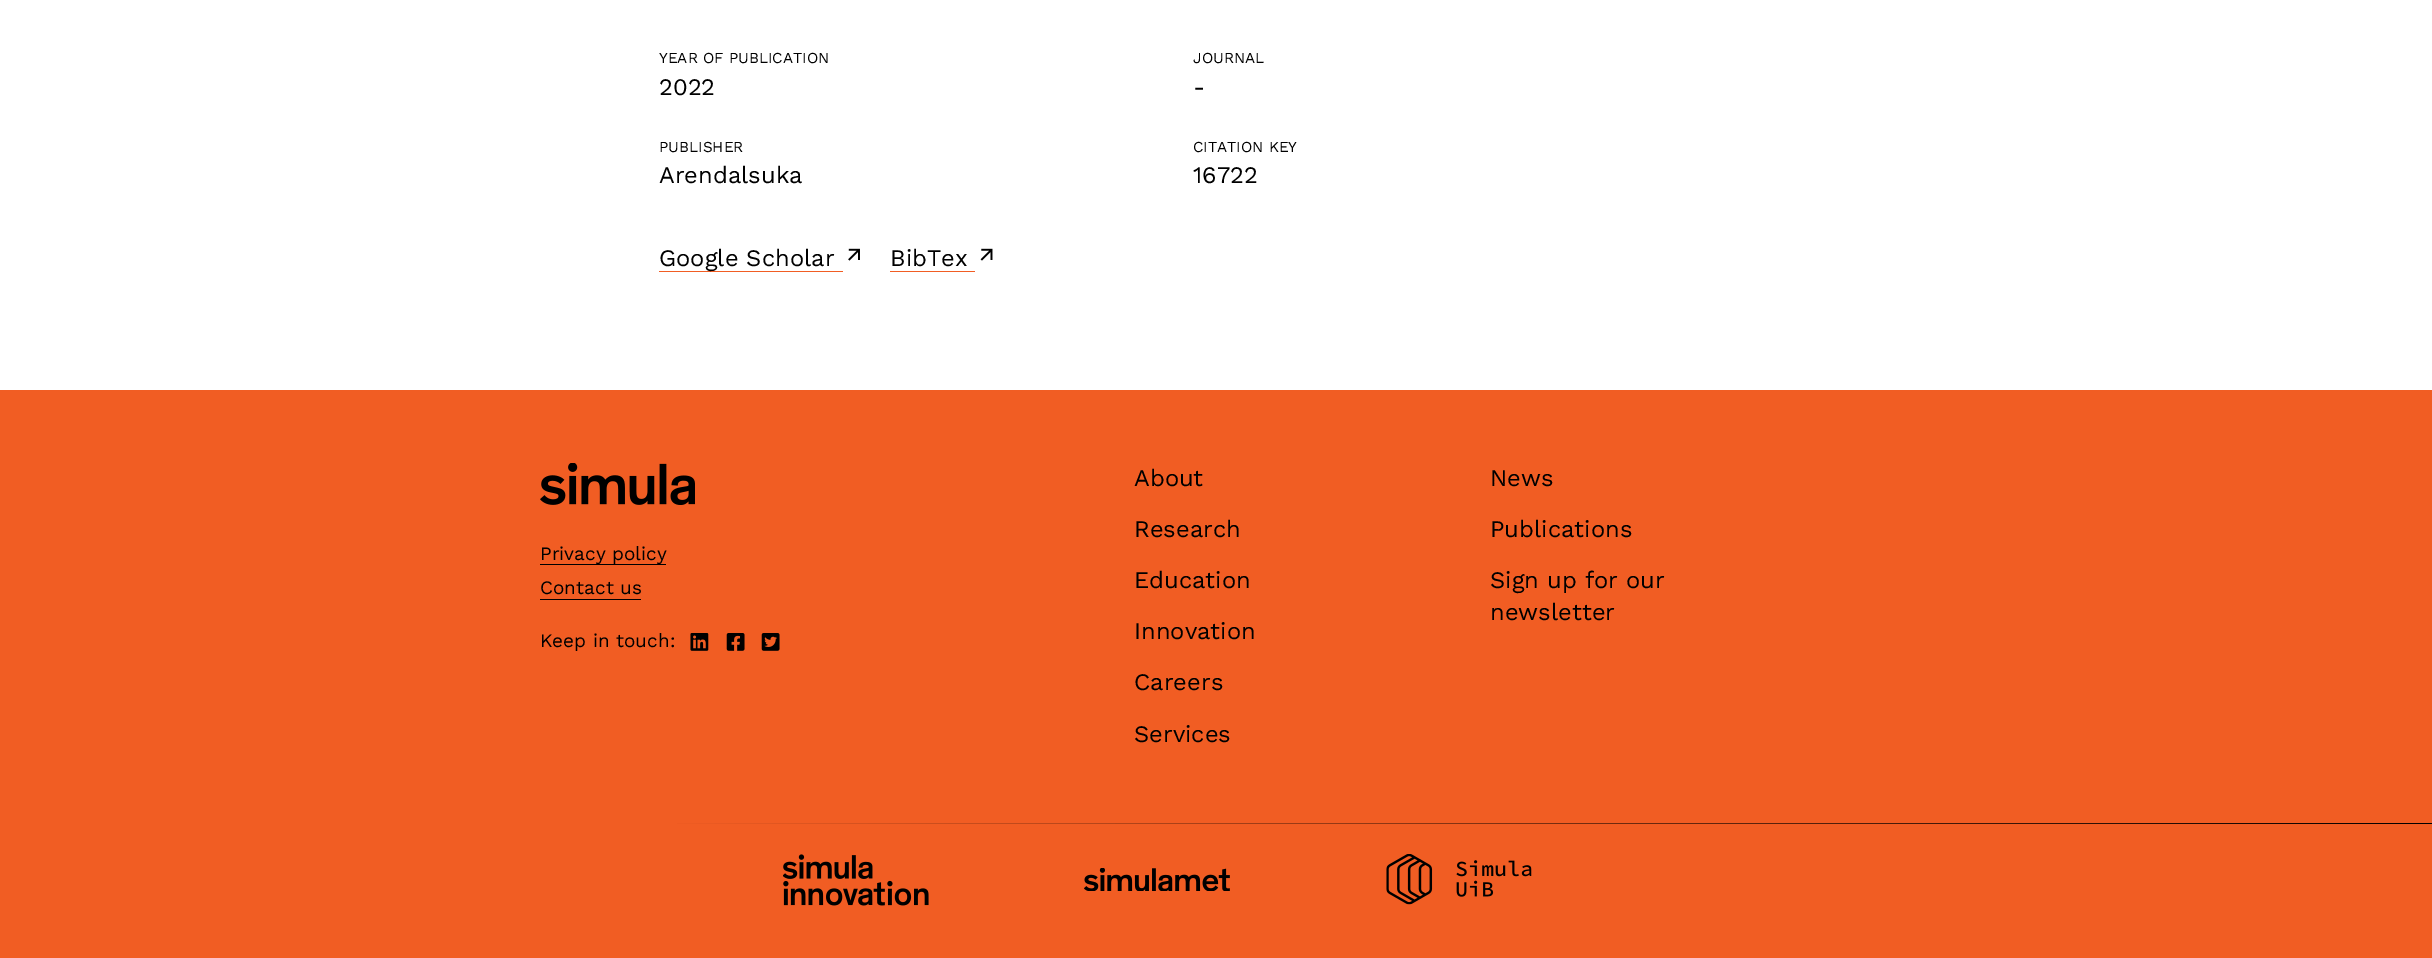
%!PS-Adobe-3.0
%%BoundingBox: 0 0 2432 958
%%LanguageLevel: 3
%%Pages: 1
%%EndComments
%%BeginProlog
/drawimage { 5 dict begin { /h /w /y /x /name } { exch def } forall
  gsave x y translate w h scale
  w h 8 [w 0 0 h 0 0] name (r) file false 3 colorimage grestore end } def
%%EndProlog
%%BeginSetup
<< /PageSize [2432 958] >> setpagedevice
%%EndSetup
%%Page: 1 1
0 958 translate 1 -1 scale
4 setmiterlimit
1 setgray
0 0 2432 958 rectfill
0.945 0.365 0.137 setrgbcolor
659 271 184 1 rectfill
(images/1.raw) 848 248 12 13 drawimage
890 271 85 1 rectfill
(images/2.raw) 980 248 13 13 drawimage
0 390 2432 568 rectfill
(images/3.raw) 540 463 155 42 drawimage
0 setgray
540 564 126 1 rectfill
540 599 101 1 rectfill
(images/4.raw) 690 633 19 18 drawimage
(images/5.raw) 726 633 19 18 drawimage
(images/6.raw) 761 633 19 18 drawimage
gsave newpath 677 823 moveto 2432 823 lineto 2432 824 lineto 677 824 lineto closepath clip newpath
<< /ShadingType 2 /ColorSpace /DeviceRGB /Coords [659 823 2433 823] /Extend [true true] /Function << /FunctionType 2 /Domain [0 1] /C0 [0.945 0.365 0.137] /C1 [0 0 0] /N 1 >> >> shfill grestore
(images/7.raw) 783 854 146 52 drawimage
(images/8.raw) 1084 868 146 23 drawimage
(images/9.raw) 1386 854 146 51 drawimage
/WorkSans-Regular [15.25 0 0 -15.25 0 0] selectfont
659 63 moveto (YEAR OF PUBLICATION) show
/WorkSans-Regular [23.75 0 0 -23.75 0 0] selectfont
659 95 moveto (2022) show
/WorkSans-Regular [15.25 0 0 -15.25 0 0] selectfont
1193 63 moveto (JOURNAL) show
/WorkSans-Regular [23.75 0 0 -23.75 0 0] selectfont
1193 95 moveto (-) show
/WorkSans-Regular [15.25 0 0 -15.25 0 0] selectfont
659 152 moveto (PUBLISHER) show
/WorkSans-Regular [23.75 0 0 -23.75 0 0] selectfont
659 183 moveto (Arendalsuka) show
/WorkSans-Regular [15.25 0 0 -15.25 0 0] selectfont
1193 152 moveto (CITATION KEY) show
/WorkSans-Regular [23.75 0 0 -23.75 0 0] selectfont
1193 183 moveto (16722) show
659 266 moveto (Google Scholar) show
890 266 moveto (BibTex) show
/WorkSans-Regular [19 0 0 -19 0 0] selectfont
540 560 moveto (Privacy policy) show
540 594 moveto (Contact us) show
540 647 moveto (Keep in touch:) show
/WorkSans-Regular [23.75 0 0 -23.75 0 0] selectfont
1134 486 moveto (About) show
1134 537 moveto (Research) show
1134 588 moveto (Education) show
1134 639 moveto (Innovation) show
1134 690 moveto (Careers) show
1134 742 moveto (Services) show
1490 486 moveto (News) show
1490 537 moveto (Publications) show
1490 588 moveto (Sign up for our) show
1490 620 moveto (newsletter) show
showpage
%%EOF
